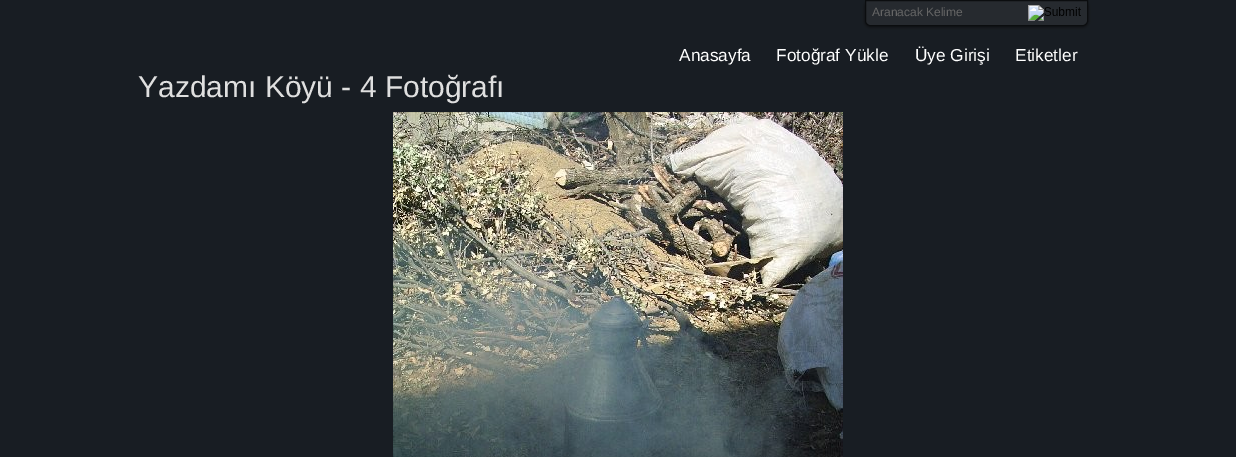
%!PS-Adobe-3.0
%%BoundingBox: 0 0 1236 457
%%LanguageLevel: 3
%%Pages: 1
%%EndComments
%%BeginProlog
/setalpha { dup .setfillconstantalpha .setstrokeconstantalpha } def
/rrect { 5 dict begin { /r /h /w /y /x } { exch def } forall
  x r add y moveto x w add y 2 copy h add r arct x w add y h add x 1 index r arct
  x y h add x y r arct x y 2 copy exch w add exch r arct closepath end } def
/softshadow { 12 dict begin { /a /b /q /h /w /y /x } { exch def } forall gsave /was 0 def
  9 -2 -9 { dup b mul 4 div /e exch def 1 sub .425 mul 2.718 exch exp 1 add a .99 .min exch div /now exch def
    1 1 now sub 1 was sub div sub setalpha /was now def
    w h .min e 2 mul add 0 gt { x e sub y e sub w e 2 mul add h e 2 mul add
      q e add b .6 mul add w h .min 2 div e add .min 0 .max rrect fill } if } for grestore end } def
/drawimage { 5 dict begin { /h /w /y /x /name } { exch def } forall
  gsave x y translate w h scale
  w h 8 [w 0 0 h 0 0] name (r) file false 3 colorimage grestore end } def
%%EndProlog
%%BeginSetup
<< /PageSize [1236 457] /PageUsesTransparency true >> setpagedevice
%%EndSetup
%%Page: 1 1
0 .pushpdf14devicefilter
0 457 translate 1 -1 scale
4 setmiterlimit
0.094 0.114 0.137 setrgbcolor
0 0 1236 457 rectfill
0 setgray
865 1 223 26 5 1.5 0.5 softshadow
0.149 0.165 0.184 setrgbcolor
newpath 865.5 0.5 moveto 1087.5 0.5 lineto 1087.5 21 lineto 1087.5 23.5 1085.5 25.5 1083 25.5 curveto 870 25.5 lineto 867.5 25.5 865.5 23.5 865.5 21 curveto closepath gsave fill grestore
0.043 0.051 0.059 setrgbcolor
stroke
(images/1.raw) 1028 5 53 16 drawimage
(images/2.raw) 393 112 450 345 drawimage
/LiberationSans-Regular [12 0 0 -12 0 0] selectfont
0.4 setgray
872 16 moveto (Aranacak Kelime) show
/LiberationSans-Regular [17.25 0 0 -17.25 0 0] selectfont
1 setgray
679 61 moveto (Anasayfa) show
776 61 moveto (Fotoğraf Yükle) show
915 61 moveto (Üye Girişi) show
1015 61 moveto (Etiketler) show
/LiberationSans-Regular [30 0 0 -30 0 0] selectfont
0.875 setgray
138 97 moveto (Yazdamı Köyü - 4 Fotoğrafı) show
.poppdf14devicefilter showpage
%%EOF
